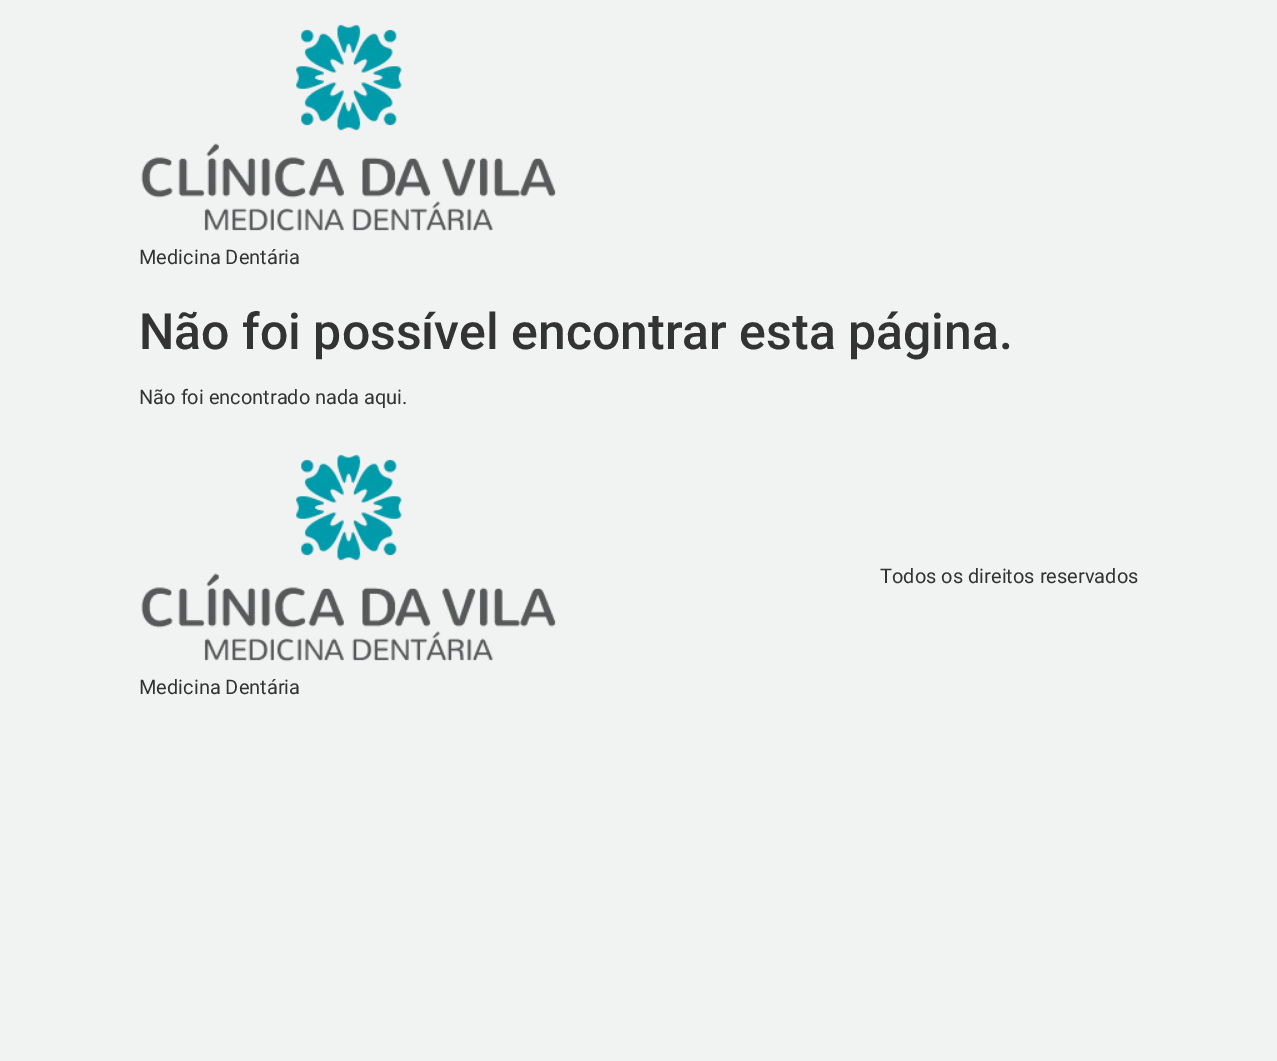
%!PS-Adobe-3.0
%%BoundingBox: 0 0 1277 1061
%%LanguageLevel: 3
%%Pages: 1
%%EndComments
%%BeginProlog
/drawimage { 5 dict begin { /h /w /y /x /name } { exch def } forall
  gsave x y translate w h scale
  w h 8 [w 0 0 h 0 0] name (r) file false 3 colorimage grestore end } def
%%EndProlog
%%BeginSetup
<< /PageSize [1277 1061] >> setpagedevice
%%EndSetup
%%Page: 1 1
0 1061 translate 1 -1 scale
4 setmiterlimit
0.945 0.949 0.949 setrgbcolor
0 0 1277 1061 rectfill
(images/1.raw) 141 24 415 208 drawimage
(images/1.raw) 141 454 415 208 drawimage
/Roboto-Regular [20 0 0 -20 0 0] selectfont
0.2 setgray
139 264 moveto (Medicina Dentária) show
/Roboto-Medium [50 0 0 -50 0 0] selectfont
139 349 moveto (Não foi possível encontrar esta página.) show
/Roboto-Regular [20 0 0 -20 0 0] selectfont
139 404 moveto (Não foi encontrado nada aqui.) show
880 583 moveto (Todos os direitos reservados) show
139 694 moveto (Medicina Dentária) show
showpage
%%EOF
